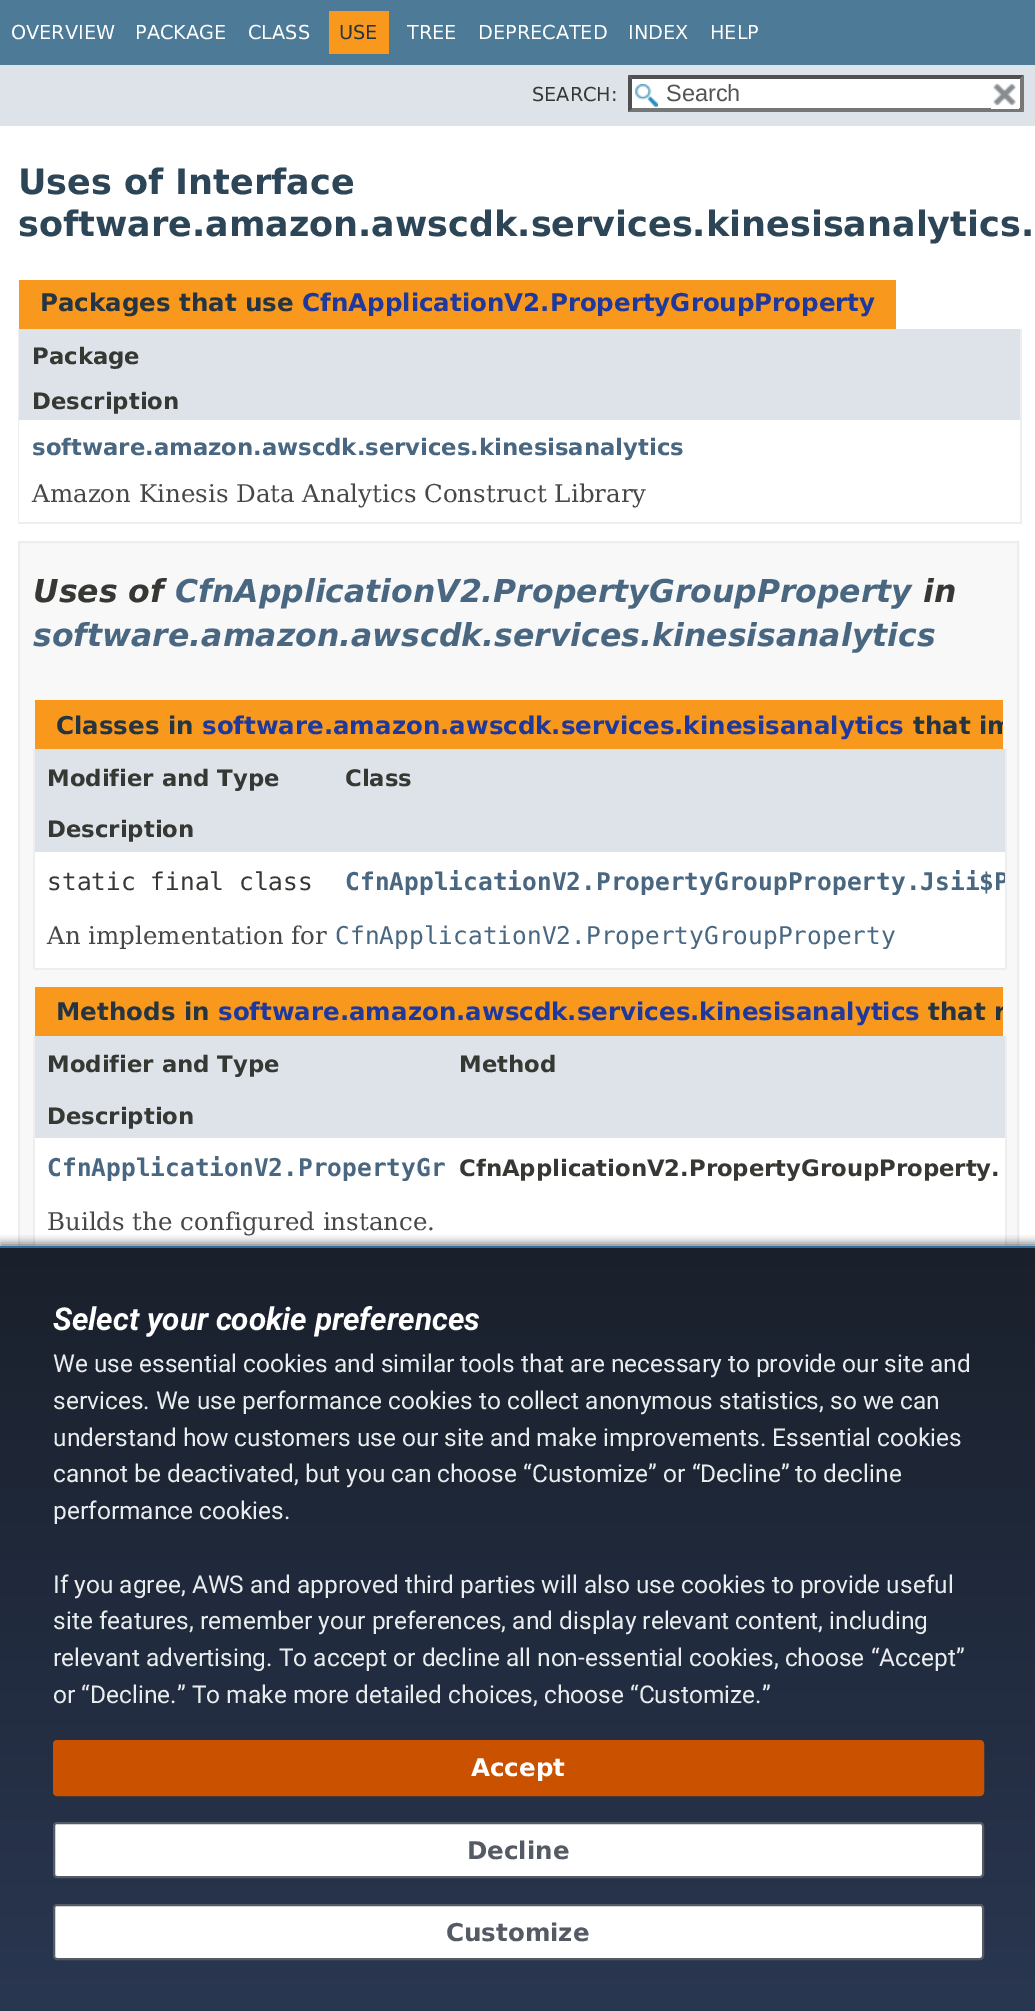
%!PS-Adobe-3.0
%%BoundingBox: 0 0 1035 2011
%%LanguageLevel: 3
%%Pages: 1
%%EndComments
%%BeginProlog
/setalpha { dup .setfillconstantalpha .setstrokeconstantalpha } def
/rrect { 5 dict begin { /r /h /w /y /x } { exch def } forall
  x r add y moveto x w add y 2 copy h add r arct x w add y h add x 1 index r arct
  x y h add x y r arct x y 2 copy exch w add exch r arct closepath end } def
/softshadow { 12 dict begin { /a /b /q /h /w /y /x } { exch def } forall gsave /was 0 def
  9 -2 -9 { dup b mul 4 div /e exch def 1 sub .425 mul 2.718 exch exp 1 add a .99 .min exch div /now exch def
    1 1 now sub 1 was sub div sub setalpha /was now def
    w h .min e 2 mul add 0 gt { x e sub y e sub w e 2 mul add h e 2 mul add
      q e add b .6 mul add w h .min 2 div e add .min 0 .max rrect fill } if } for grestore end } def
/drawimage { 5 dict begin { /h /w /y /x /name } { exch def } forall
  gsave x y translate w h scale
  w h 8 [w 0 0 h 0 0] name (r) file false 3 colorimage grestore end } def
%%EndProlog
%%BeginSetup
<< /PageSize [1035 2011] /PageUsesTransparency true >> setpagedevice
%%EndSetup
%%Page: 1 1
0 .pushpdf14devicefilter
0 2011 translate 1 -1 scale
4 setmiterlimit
1 setgray
0 0 1035 2011 rectfill
0.302 0.478 0.592 setrgbcolor
0 0 1035 65 rectfill
0.973 0.596 0.114 setrgbcolor
329 11 60 43 rectfill
0.871 0.89 0.914 setrgbcolor
0 65 1035 61 rectfill
1 setgray
628 75 396 37 rectfill
(images/1.raw) 635 84 23 23 drawimage
0.31 setgray
newpath 628 75 moveto 1024 75 lineto 1020 79 lineto 632 79 lineto closepath fill
0.463 setgray
newpath 1024 75 moveto 1024 112 lineto 1020 108.5 lineto 1020 79 lineto closepath fill
newpath 1024 112 moveto 628 112 lineto 632 108 lineto 1020 108 lineto closepath fill
0.31 setgray
newpath 628 112 moveto 628 75 lineto 632 79 lineto 632 108.5 lineto closepath fill
1 setgray
991 108 28 1 rectfill
(images/2.raw) 993 83 23 23 drawimage
0.973 0.596 0.114 setrgbcolor
19 280 877 49 rectfill
0.933 setgray
1020 329 2 194 rectfill
18 522 1004 2 rectfill
18 329 2 194 rectfill
0.871 0.89 0.914 setrgbcolor
19 329 1001 91 rectfill
1 setgray
19 420 1 102 rectfill
0.973 setgray
newpath 19 542 moveto 1018 542 lineto 1018 1264 lineto 19 1264 lineto closepath gsave fill grestore
0.929 setgray
2 setlinewidth
stroke
0.973 0.596 0.114 setrgbcolor
35 700 968 49 rectfill
0.933 setgray
1005 749 2 221 rectfill
33 968 973 2 rectfill
33 749 2 221 rectfill
0.871 0.89 0.914 setrgbcolor
35 749 970 51 rectfill
35 800 970 52 rectfill
1 setgray
35 852 970 53 rectfill
35 905 970 63 rectfill
0.973 0.596 0.114 setrgbcolor
35 987 968 49 rectfill
0.933 setgray
1005 1036 2 219 rectfill
33 1253 973 2 rectfill
33 1036 2 219 rectfill
0.871 0.89 0.914 setrgbcolor
35 1036 970 51 rectfill
35 1087 970 51 rectfill
1 setgray
35 1138 970 54 rectfill
35 1192 970 61 rectfill
0.624 setgray
0 1321 1035 2 rectfill
0.933 setgray
1034 1321 1 4 rectfill
0 1323 1035 2 rectfill
0.624 setgray
0 1321 2 4 rectfill
gsave
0 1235 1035 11 rectclip
0 setgray
0 1243 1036 766 0 4.5 0.5 softshadow
grestore
0.98 setalpha
gsave newpath 0 1248 moveto 1035 1248 lineto 1035 2011 lineto 0 2011 lineto closepath clip newpath
<< /ShadingType 2 /ColorSpace /DeviceRGB /Coords [518 1248 518 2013] /Extend [true true] /Function << /FunctionType 2 /Domain [0 1] /C0 [0.082 0.11 0.153] /C1 [0.149 0.2 0.302] /N 1 >> >> shfill grestore
1 setalpha
0.188 0.427 0.639 setrgbcolor
0 1246 1035 2 rectfill
0.788 0.318 0 setrgbcolor
54 1741 929 54 3 rrect gsave fill grestore
stroke
1 setgray
54 1823 929 54 3 rrect gsave fill grestore
0.329 0.357 0.392 setrgbcolor
stroke
1 setgray
54 1905 929 54 3 rrect gsave fill grestore
0.329 0.357 0.392 setrgbcolor
stroke
/DejaVuSans-Regular [19.25 0 0 -19.25 0 0] selectfont
1 setgray
11 39 moveto (OVERVIEW) show
135 39 moveto (PACKAGE) show
248 39 moveto (CLASS) show
0.145 0.204 0.255 setrgbcolor
339 39 moveto (USE) show
1 setgray
407 39 moveto (TREE) show
478 39 moveto (DEPRECATED) show
628 39 moveto (INDEX) show
710 39 moveto (HELP) show
0.208 0.22 0.2 setrgbcolor
532 101 moveto (SEARCH:) show
/LiberationSans-Regular [23.5 0 0 -23.5 0 0] selectfont
0.329 setgray
666 101 moveto (Search) show
/DejaVuSans-Bold [35 0 0 -35 0 0] selectfont
0.173 0.271 0.341 setrgbcolor
18 194 moveto (Uses of Interface) show
18 236 moveto (software.amazon.awscdk.services.kinesisanalytics.) show
/DejaVuSans-Bold [24.5 0 0 -24.5 0 0] selectfont
0.145 0.204 0.255 setrgbcolor
40 311 moveto (Packages that use) show
0.122 0.22 0.612 setrgbcolor
302 311 moveto (CfnApplicationV2.PropertyGroupProperty) show
/DejaVuSans-Bold [22.75 0 0 -22.75 0 0] selectfont
0.208 0.22 0.2 setrgbcolor
32 364 moveto (Package) show
32 409 moveto (Description) show
0.29 0.404 0.51 setrgbcolor
32 455 moveto (software.amazon.awscdk.services.kinesisanalytics) show
/DejaVuSerif-Regular [24.5 0 0 -24.5 0 0] selectfont
0.278 setgray
32 502 moveto (Amazon Kinesis Data Analytics Construct Library) show
/DejaVuSans-BoldItalic [31.5 0 0 -31.5 0 0] selectfont
0.208 0.22 0.2 setrgbcolor
33 602 moveto (Uses of) show
0.29 0.404 0.51 setrgbcolor
175 602 moveto (CfnApplicationV2.PropertyGroupProperty) show
0.208 0.22 0.2 setrgbcolor
923 602 moveto (in) show
0.29 0.404 0.51 setrgbcolor
33 646 moveto (software.amazon.awscdk.services.kinesisanalytics) show
/DejaVuSans-Bold [24.5 0 0 -24.5 0 0] selectfont
0.145 0.204 0.255 setrgbcolor
56 734 moveto (Classes in) show
0.122 0.22 0.612 setrgbcolor
202 734 moveto (software.amazon.awscdk.services.kinesisanalytics) show
gsave
33 683 970 66 rectclip
0.145 0.204 0.255 setrgbcolor
913 734 moveto (that im) show
grestore
/DejaVuSans-Bold [22.75 0 0 -22.75 0 0] selectfont
0.208 0.22 0.2 setrgbcolor
47 786 moveto (Modifier and Type) show
345 786 moveto (Class) show
47 837 moveto (Description) show
/DejaVuSansMono-Regular [24.5 0 0 -24.5 0 0] selectfont
47 890 moveto (static final class) show
gsave
333 852 672 53 rectclip
/DejaVuSansMono-Bold [24.5 0 0 -24.5 0 0] selectfont
0.29 0.404 0.51 setrgbcolor
345 890 moveto (CfnApplicationV2.PropertyGroupProperty.Jsii$P) show
grestore
/DejaVuSerif-Regular [24.5 0 0 -24.5 0 0] selectfont
0.278 setgray
47 944 moveto (An implementation for) show
/DejaVuSansMono-Regular [24.5 0 0 -24.5 0 0] selectfont
0.29 0.404 0.51 setrgbcolor
335 944 moveto (CfnApplicationV2.PropertyGroupProperty) show
/DejaVuSans-Bold [24.5 0 0 -24.5 0 0] selectfont
0.145 0.204 0.255 setrgbcolor
56 1020 moveto (Methods in) show
0.122 0.22 0.612 setrgbcolor
218 1020 moveto (software.amazon.awscdk.services.kinesisanalytics) show
gsave
33 970 970 66 rectclip
0.145 0.204 0.255 setrgbcolor
928 1020 moveto (that r) show
grestore
/DejaVuSans-Bold [22.75 0 0 -22.75 0 0] selectfont
0.208 0.22 0.2 setrgbcolor
47 1072 moveto (Modifier and Type) show
459 1072 moveto (Method) show
47 1124 moveto (Description) show
/DejaVuSansMono-Bold [24.5 0 0 -24.5 0 0] selectfont
0.29 0.404 0.51 setrgbcolor
47 1176 moveto (CfnApplicationV2.PropertyGr) show
/DejaVuSans-Bold [22.75 0 0 -22.75 0 0] selectfont
0.208 0.22 0.2 setrgbcolor
459 1176 moveto (CfnApplicationV2.PropertyGroupProperty.) show
/DejaVuSerif-Regular [24.5 0 0 -24.5 0 0] selectfont
0.278 setgray
47 1230 moveto (Builds the configured instance.) show
/Roboto-BoldItalic [31.5 0 0 -31.5 0 0] selectfont
1 setgray
53 1330 moveto (Select your cookie preferences) show
/Roboto-Regular [24.5 0 0 -24.5 0 0] selectfont
0.918 0.929 0.929 setrgbcolor
53 1372 moveto (We use essential cookies and similar tools that are necessary to provide our site and) show
53 1409 moveto (services. We use performance cookies to collect anonymous statistics, so we can) show
53 1446 moveto (understand how customers use our site and make improvements. Essential cookies) show
53 1482 moveto (cannot be deactivated, but you can choose “Customize” or “Decline” to decline) show
53 1519 moveto (performance cookies.) show
53 1593 moveto (If you agree, AWS and approved third parties will also use cookies to provide useful) show
53 1629 moveto (site features, remember your preferences, and display relevant content, including) show
53 1666 moveto (relevant advertising. To accept or decline all non-essential cookies, choose “Accept”) show
53 1703 moveto (or “Decline.” To make more detailed choices, choose “Customize.”) show
/DejaVuSans-Bold [24.5 0 0 -24.5 0 0] selectfont
1 setgray
471 1776 moveto (Accept) show
0.329 0.357 0.392 setrgbcolor
467 1859 moveto (Decline) show
446 1941 moveto (Customize) show
.poppdf14devicefilter showpage
%%EOF
